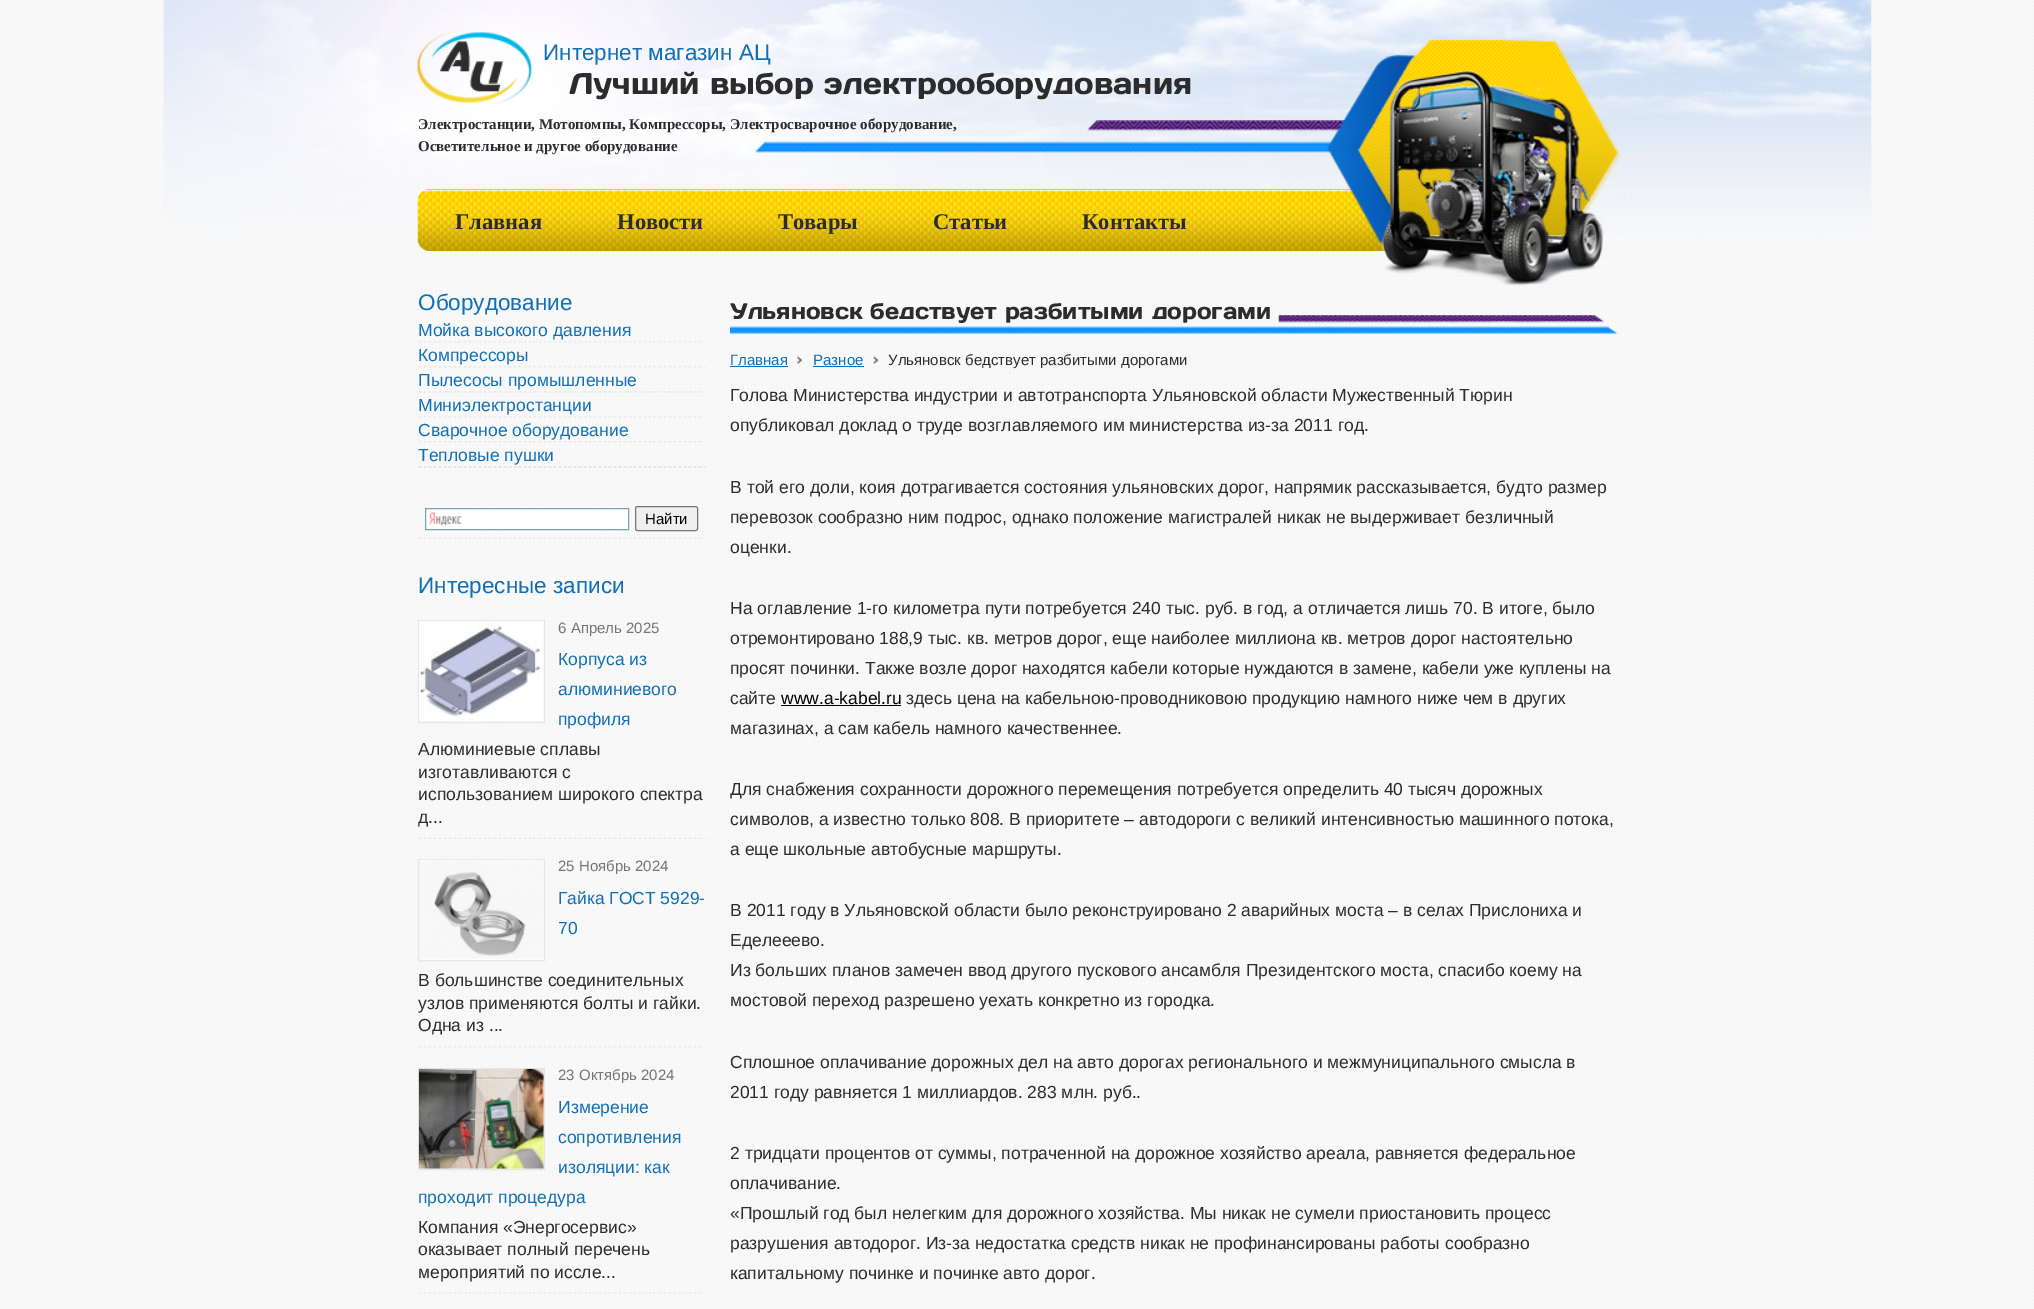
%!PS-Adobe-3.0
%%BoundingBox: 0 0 2034 1309
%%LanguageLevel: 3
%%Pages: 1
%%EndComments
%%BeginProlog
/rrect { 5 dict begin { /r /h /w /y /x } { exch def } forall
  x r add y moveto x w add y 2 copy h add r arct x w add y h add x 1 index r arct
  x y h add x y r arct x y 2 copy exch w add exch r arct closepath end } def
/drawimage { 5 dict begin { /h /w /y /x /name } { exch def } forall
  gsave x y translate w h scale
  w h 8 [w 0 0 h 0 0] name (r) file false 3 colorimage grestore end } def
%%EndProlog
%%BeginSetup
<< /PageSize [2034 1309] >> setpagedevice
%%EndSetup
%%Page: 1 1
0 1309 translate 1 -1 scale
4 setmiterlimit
1 setgray
0 0 2034 1309 rectfill
(images/1.raw) 0 0 2034 1309 drawimage
(images/2.raw) 163 0 1709 235 drawimage
(images/3.raw) 417 31 115 74 drawimage
(images/5.raw) 755 120 623 33 drawimage
(images/6.raw) 417 188 976 64 drawimage
(images/4.raw) 1327 39 298 247 drawimage
(images/7.raw) 418 466 287 2 drawimage
(images/8.raw) 418 341 287 2 drawimage
(images/9.raw) 418 366 287 2 drawimage
(images/7.raw) 418 391 287 2 drawimage
(images/8.raw) 418 416 287 2 drawimage
(images/9.raw) 418 441 287 2 drawimage
(images/10.raw) 418 466 287 2 drawimage
(images/11.raw) 418 537 287 2 drawimage
426 509 202 20 rectfill
(images/12.raw) 429 512 33 14 drawimage
0.498 0.616 0.725 setrgbcolor
425.5 508.5 203 21 rectstroke
0.937 setgray
635.5 506.5 62 24 2 rrect gsave fill grestore
0.463 setgray
stroke
(images/11.raw) 418 837 287 2 drawimage
0.902 setgray
418.5 620.5 126 102 0.5 rrect stroke
(images/13.raw) 419 621 124 100 drawimage
(images/8.raw) 418 1046 287 2 drawimage
418.5 859.5 126 101 0.5 rrect stroke
(images/14.raw) 420 860 123 100 drawimage
(images/15.raw) 418 1292 287 2 drawimage
418.5 1068.5 126 101 0.5 rrect stroke
(images/16.raw) 418 1068 126 101 drawimage
(images/17.raw) 730 315 888 19 drawimage
(images/18.raw) 730 315 549 8 drawimage
0.063 0.435 0.714 setrgbcolor
730 366 58 1 rectfill
(images/19.raw) 797 356 6 8 drawimage
813 366 51 1 rectfill
(images/20.raw) 873 356 6 8 drawimage
0 setgray
781 705 120 1 rectfill
/LiberationSans-Regular [22.5 0 0 -22.5 0 0] selectfont
0.063 0.435 0.714 setrgbcolor
543 60 moveto (Интернет магазин АЦ) show
/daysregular-Regular [30 0 0 -30 0 0] selectfont
0.173 setgray
569 94 moveto (Лучший выбор электрооборудования) show
/LiberationSerif-Bold [15 0 0 -15 0 0] selectfont
418 129 moveto (Электростанции, Мотопомпы, Компрессоры, Электросварочное оборудование,) show
418 151 moveto (Осветительное и другое оборудование) show
/LiberationSerif-Bold [22.5 0 0 -22.5 0 0] selectfont
455 229 moveto (Главная) show
617 229 moveto (Новости) show
778 229 moveto (Товары) show
933 229 moveto (Статьи) show
1082 229 moveto (Контакты) show
/LiberationSans-Regular [22.5 0 0 -22.5 0 0] selectfont
0.063 0.435 0.714 setrgbcolor
418 310 moveto (Оборудование) show
/LiberationSans-Regular [17.5 0 0 -17.5 0 0] selectfont
418 336 moveto (Мойка высокого давления) show
418 361 moveto (Компрессоры) show
418 386 moveto (Пылесосы промышленные) show
418 411 moveto (Миниэлектростанции) show
418 436 moveto (Сварочное оборудование) show
418 461 moveto (Тепловые пушки) show
/LiberationSans-Regular [15 0 0 -15 0 0] selectfont
0 setgray
645 524 moveto (Найти) show
/LiberationSans-Regular [22.5 0 0 -22.5 0 0] selectfont
0.063 0.435 0.714 setrgbcolor
418 593 moveto (Интересные записи) show
/LiberationSans-Regular [15 0 0 -15 0 0] selectfont
0.459 setgray
558 633 moveto (6 Апрель 2025) show
/LiberationSans-Regular [17.5 0 0 -17.5 0 0] selectfont
0.063 0.435 0.714 setrgbcolor
558 665 moveto (Корпуса из) show
558 695 moveto (алюминиевого) show
558 725 moveto (профиля) show
0.173 setgray
418 755 moveto (Алюминиевые сплавы) show
418 778 moveto (изготавливаются с) show
418 800 moveto (использованием широкого спектра) show
418 823 moveto (д...) show
/LiberationSans-Regular [15 0 0 -15 0 0] selectfont
0.459 setgray
558 871 moveto (25 Ноябрь 2024) show
/LiberationSans-Regular [17.5 0 0 -17.5 0 0] selectfont
0.063 0.435 0.714 setrgbcolor
558 904 moveto (Гайка ГОСТ 5929-) show
558 934 moveto (70) show
0.173 setgray
418 986 moveto (В большинстве соединительных) show
418 1009 moveto (узлов применяются болты и гайки.) show
418 1031 moveto (Одна из ...) show
/LiberationSans-Regular [15 0 0 -15 0 0] selectfont
0.459 setgray
558 1080 moveto (23 Октябрь 2024) show
/LiberationSans-Regular [17.5 0 0 -17.5 0 0] selectfont
0.063 0.435 0.714 setrgbcolor
558 1113 moveto (Измерение) show
558 1143 moveto (сопротивления) show
558 1173 moveto (изоляции: как) show
418 1203 moveto (проходит процедура) show
0.173 setgray
418 1233 moveto (Компания «Энергосервис») show
418 1255 moveto (оказывает полный перечень) show
418 1278 moveto (мероприятий по иссле...) show
/daysregular-Regular [22.5 0 0 -22.5 0 0] selectfont
730 319 moveto (Ульяновск бедствует разбитыми дорогами) show
/LiberationSans-Regular [15 0 0 -15 0 0] selectfont
0.063 0.435 0.714 setrgbcolor
730 365 moveto (Главная) show
813 365 moveto (Разное) show
0.173 setgray
888 365 moveto (Ульяновск бедствует разбитыми дорогами) show
/LiberationSans-Regular [17.5 0 0 -17.5 0 0] selectfont
730 401 moveto (Голова Министерства индустрии и автотранспорта Ульяновской области Мужественный Тюрин) show
730 431 moveto (опубликовал доклад о труде возглавляемого им министерства из-за 2011 год.) show
730 493 moveto (В той его доли, коия дотрагивается состояния ульяновских дорог, напрямик рассказывается, будто размер) show
730 523 moveto (перевозок сообразно ним подрос, однако положение магистралей никак не выдерживает безличный) show
730 553 moveto (оценки.) show
730 614 moveto (На оглавление 1-го километра пути потребуется 240 тыс. руб. в год, а отличается лишь 70. В итоге, было) show
730 644 moveto (отремонтировано 188,9 тыс. кв. метров дорог, еще наиболее миллиона кв. метров дорог настоятельно) show
730 674 moveto (просят починки. Также возле дорог находятся кабели которые нуждаются в замене, кабели уже куплены на) show
730 704 moveto (сайте) show
0 setgray
781 704 moveto (www.a-kabel.ru) show
0.173 setgray
906 704 moveto (здесь цена на кабельною-проводниковою продукцию намного ниже чем в других) show
730 734 moveto (магазинах, а сам кабель намного качественнее.) show
730 795 moveto (Для снабжения сохранности дорожного перемещения потребуется определить 40 тысяч дорожных) show
730 825 moveto (символов, а известно только 808. В приоритете – автодороги с великий интенсивностью машинного потока,) show
730 855 moveto (а еще школьные автобусные маршруты.) show
730 916 moveto (В 2011 году в Ульяновской области было реконструировано 2 аварийных моста – в селах Прислониха и) show
730 946 moveto (Еделееево.) show
730 976 moveto (Из больших планов замечен ввод другого пускового ансамбля Президентского моста, спасибо коему на) show
730 1006 moveto (мостовой переход разрешено уехать конкретно из городка.) show
730 1068 moveto (Сплошное оплачивание дорожных дел на авто дорогах регионального и межмуниципального смысла в) show
730 1098 moveto (2011 году равняется 1 миллиардов. 283 млн. руб..) show
730 1159 moveto (2 тридцати процентов от суммы, потраченной на дорожное хозяйство ареала, равняется федеральное) show
730 1189 moveto (оплачивание.) show
730 1219 moveto («Прошлый год был нелегким для дорожного хозяйства. Мы никак не сумели приостановить процесс) show
730 1249 moveto (разрушения автодорог. Из-за недостатка средств никак не профинансированы работы сообразно) show
730 1279 moveto (капитальному починке и починке авто дорог.) show
showpage
%%EOF
